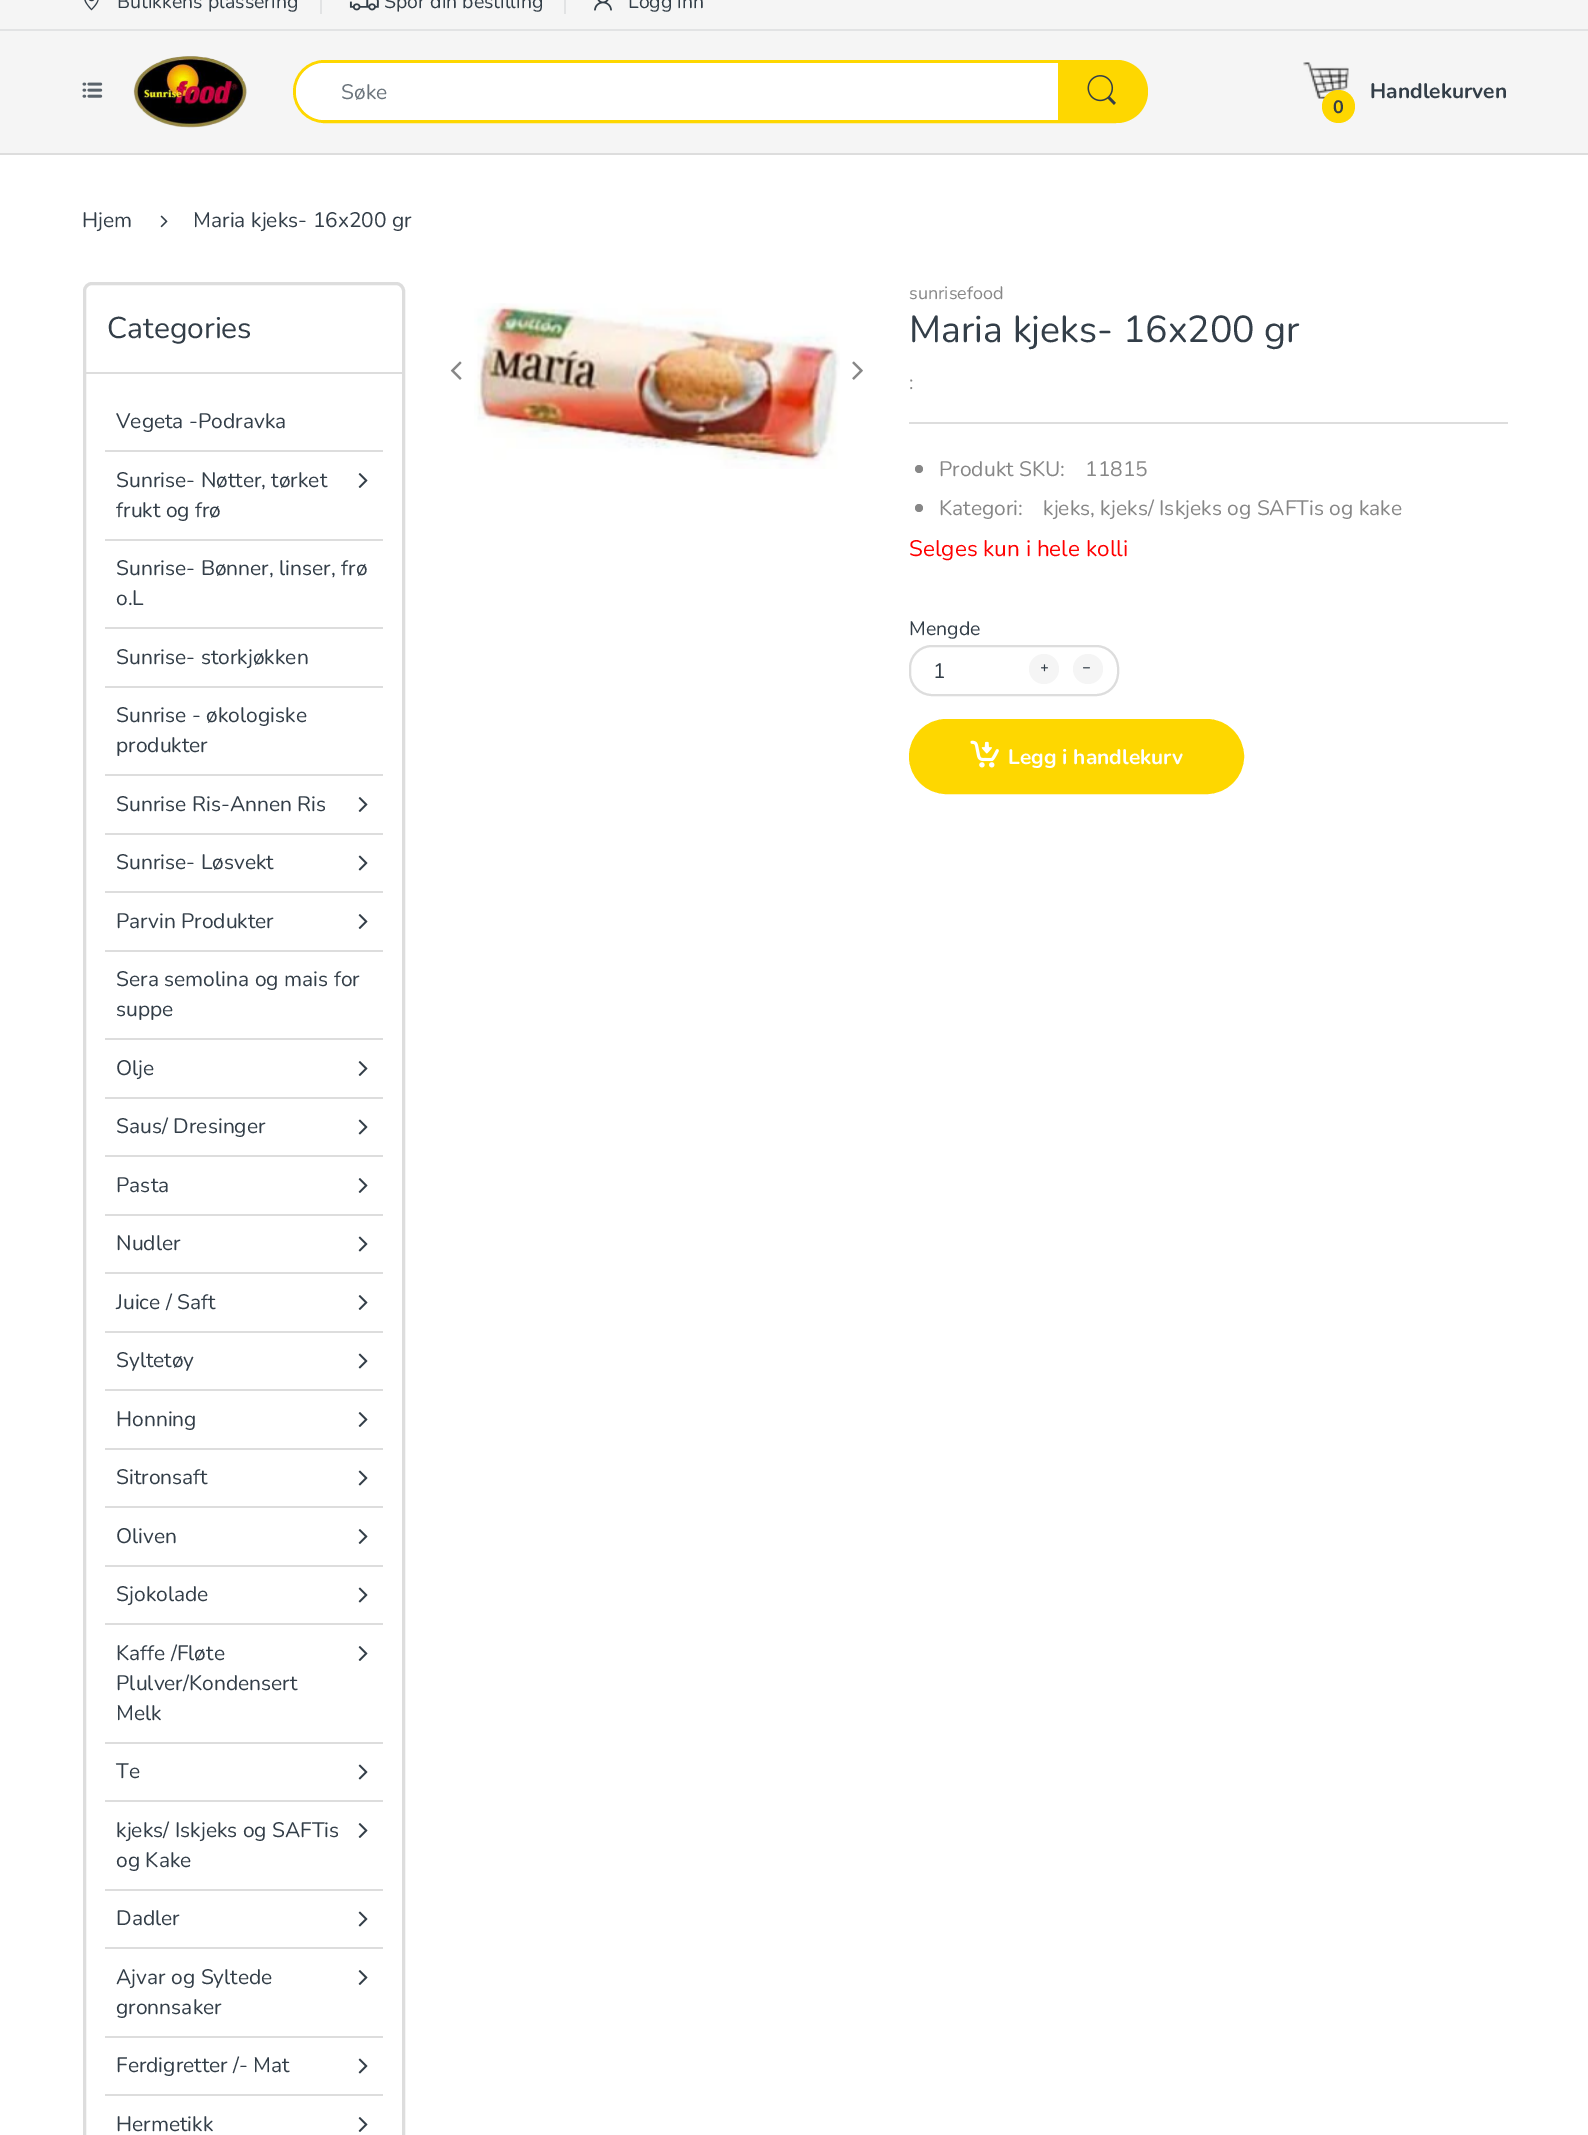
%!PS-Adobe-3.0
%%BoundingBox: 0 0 1588 2135
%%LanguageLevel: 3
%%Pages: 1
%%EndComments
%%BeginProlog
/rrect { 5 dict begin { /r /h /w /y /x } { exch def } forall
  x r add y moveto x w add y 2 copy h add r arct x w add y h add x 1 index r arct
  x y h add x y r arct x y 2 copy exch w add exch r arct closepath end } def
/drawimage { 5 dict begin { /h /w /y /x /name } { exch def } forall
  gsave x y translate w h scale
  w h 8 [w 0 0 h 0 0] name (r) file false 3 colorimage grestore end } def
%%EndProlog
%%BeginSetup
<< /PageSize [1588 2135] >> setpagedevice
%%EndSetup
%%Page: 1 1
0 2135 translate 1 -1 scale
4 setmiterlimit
1 setgray
0 0 1588 2135 rectfill
0.961 setgray
0 0 1588 153 rectfill
0.867 setgray
0 153 1588 2 rectfill
0.886 0.89 0.894 setrgbcolor
0 29 1588 2 rectfill
(images/1.raw) 84 0 15 11 drawimage
320 0 2 14 rectfill
(images/2.raw) 349 0 30 11 drawimage
564 0 2 14 rectfill
(images/3.raw) 594 0 18 11 drawimage
(images/4.raw) 82 82 21 16 drawimage
(images/5.raw) 133 56 114 72 drawimage
0.996 0.843 0 setrgbcolor
3 setlinewidth
294.5 61.5 850 60 30 rrect stroke
1 setgray
296 63 847 57 28.5 rrect fill
0.996 0.843 0 setrgbcolor
newpath 1058 60 moveto 1116.5 60 lineto 1134 60 1148 74 1148 91.5 curveto 1148 109 1134 123 1116.5 123 curveto 1058 123 lineto closepath fill
(images/6.raw) 1087 75 29 30 drawimage
(images/7.raw) 1303 62 46 37 drawimage
newpath 1338.5 106.5 16.5 0 360 arc closepath fill
(images/8.raw) 160 215 8 13 drawimage
0.867 setgray
84.5 283.5 319 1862 7.5 rrect stroke
86 372 316 2 rectfill
105 450 278 2 rectfill
105 539 278 2 rectfill
(images/9.raw) 358 473 10 15 drawimage
105 627 278 2 rectfill
105 686 278 2 rectfill
105 774 278 2 rectfill
105 833 278 2 rectfill
(images/9.raw) 358 797 10 15 drawimage
105 891 278 2 rectfill
(images/10.raw) 358 855 10 16 drawimage
105 950 278 2 rectfill
(images/9.raw) 358 914 10 15 drawimage
105 1038 278 2 rectfill
105 1097 278 2 rectfill
(images/9.raw) 358 1061 10 15 drawimage
105 1155 278 2 rectfill
(images/10.raw) 358 1119 10 16 drawimage
105 1214 278 2 rectfill
(images/9.raw) 358 1178 10 15 drawimage
105 1272 278 2 rectfill
(images/10.raw) 358 1236 10 16 drawimage
105 1331 278 2 rectfill
(images/9.raw) 358 1295 10 15 drawimage
105 1389 278 2 rectfill
(images/10.raw) 358 1353 10 16 drawimage
105 1448 278 2 rectfill
(images/9.raw) 358 1412 10 15 drawimage
105 1506 278 2 rectfill
(images/10.raw) 358 1470 10 16 drawimage
105 1565 278 2 rectfill
(images/9.raw) 358 1529 10 15 drawimage
105 1623 278 2 rectfill
(images/10.raw) 358 1587 10 16 drawimage
105 1742 278 2 rectfill
(images/9.raw) 358 1646 10 15 drawimage
105 1800 278 2 rectfill
(images/10.raw) 358 1764 10 16 drawimage
105 1889 278 2 rectfill
(images/9.raw) 358 1823 10 15 drawimage
105 1947 278 2 rectfill
(images/10.raw) 358 1911 10 16 drawimage
105 2036 278 2 rectfill
(images/9.raw) 358 1970 10 15 drawimage
105 2094 278 2 rectfill
(images/10.raw) 358 2058 10 16 drawimage
(images/9.raw) 358 2117 10 15 drawimage
(images/11.raw) 474 303 366 166 drawimage
(images/12.raw) 450 361 12 19 drawimage
(images/13.raw) 852 361 11 19 drawimage
909 422 599 2 rectfill
0.529 setgray
newpath 919 469 4 0 360 arc closepath fill
newpath 919 508 4 0 360 arc closepath fill
0.867 setgray
2 setlinewidth
910 646 208 49 22 rrect stroke
0.961 setgray
newpath 1044 669 15 0 360 arc closepath fill
(images/14.raw) 1041 664 7 8 drawimage
newpath 1088 669 15 0 360 arc closepath fill
(images/15.raw) 1083 667 7 2 drawimage
0.996 0.843 0 setrgbcolor
910 720 333 73 36.5 rrect gsave fill grestore
stroke
(images/16.raw) 970 740 29 28 drawimage
/Nunito-Regular [19.5 0 0 -19.5 0 0] selectfont
0.2 0.243 0.282 setrgbcolor
117 8 moveto (Butikkens plassering) show
384 8 moveto (Spor din bestilling) show
628 8 moveto (Logg inn) show
/Nunito-Regular [21 0 0 -21 0 0] selectfont
0.424 0.459 0.49 setrgbcolor
341 99 moveto (Søke) show
/Nunito-Bold [21 0 0 -21 0 0] selectfont
0.2 0.243 0.282 setrgbcolor
1370 98 moveto (Handlekurven) show
/Nunito-Bold [18 0 0 -18 0 0] selectfont
1333 113 moveto (0) show
/Nunito-Regular [21 0 0 -21 0 0] selectfont
82 227 moveto (Hjem) show
193 227 moveto (Maria kjeks- 16x200 gr) show
/Nunito-Regular [30 0 0 -30 0 0] selectfont
107 338 moveto (Categories) show
/Nunito-Regular [21 0 0 -21 0 0] selectfont
116 428 moveto (Vegeta -Podravka) show
116 487 moveto (Sunrise- Nøtter, tørket) show
116 517 moveto (frukt og frø) show
116 575 moveto (Sunrise- Bønner, linser, frø) show
116 605 moveto (o.L) show
116 664 moveto (Sunrise- storkjøkken) show
116 722 moveto (Sunrise - økologiske) show
116 752 moveto (produkter) show
116 811 moveto (Sunrise Ris-Annen Ris) show
116 869 moveto (Sunrise- Løsvekt) show
116 928 moveto (Parvin Produkter) show
116 986 moveto (Sera semolina og mais for) show
116 1016 moveto (suppe) show
116 1075 moveto (Olje) show
116 1133 moveto (Saus/ Dresinger) show
116 1192 moveto (Pasta) show
116 1250 moveto (Nudler) show
116 1309 moveto (Juice / Saft) show
116 1367 moveto (Syltetøy) show
116 1426 moveto (Honning) show
116 1484 moveto (Sitronsaft) show
116 1543 moveto (Oliven) show
116 1601 moveto (Sjokolade) show
116 1660 moveto (Kaffe /Fløte) show
116 1690 moveto (Plulver/Kondensert) show
116 1720 moveto (Melk) show
116 1778 moveto (Te) show
116 1837 moveto (kjeks/ Iskjeks og SAFTis) show
116 1867 moveto (og Kake) show
116 1925 moveto (Dadler) show
116 1984 moveto (Ajvar og Syltede) show
116 2014 moveto (gronnsaker) show
116 2072 moveto (Ferdigretter /- Mat) show
116 2131 moveto (Hermetikk) show
/Nunito-Regular [18 0 0 -18 0 0] selectfont
0.529 setgray
909 299 moveto (sunrisefood) show
/Nunito-Regular [37.5 0 0 -37.5 0 0] selectfont
0.2 0.243 0.282 setrgbcolor
909 342 moveto (Maria kjeks- 16x200 gr) show
/Nunito-Regular [19.5 0 0 -19.5 0 0] selectfont
0.529 setgray
909 389 moveto (:) show
/Nunito-Regular [21 0 0 -21 0 0] selectfont
939 476 moveto (Produkt SKU:) show
1085 476 moveto (11815) show
939 515 moveto (Kategori:) show
1043 515 moveto (kjeks, kjeks/ Iskjeks og SAFTis og kake) show
/Nunito-Regular [22.5 0 0 -22.5 0 0] selectfont
1 0 0 setrgbcolor
909 556 moveto (Selges kun i hele kolli) show
/Nunito-Regular [19.5 0 0 -19.5 0 0] selectfont
0.2 0.243 0.282 setrgbcolor
909 635 moveto (Mengde) show
/Nunito-Regular [21 0 0 -21 0 0] selectfont
933 678 moveto (1) show
/Nunito-Bold [21 0 0 -21 0 0] selectfont
1 setgray
1008 764 moveto (Legg i handlekurv) show
showpage
%%EOF
